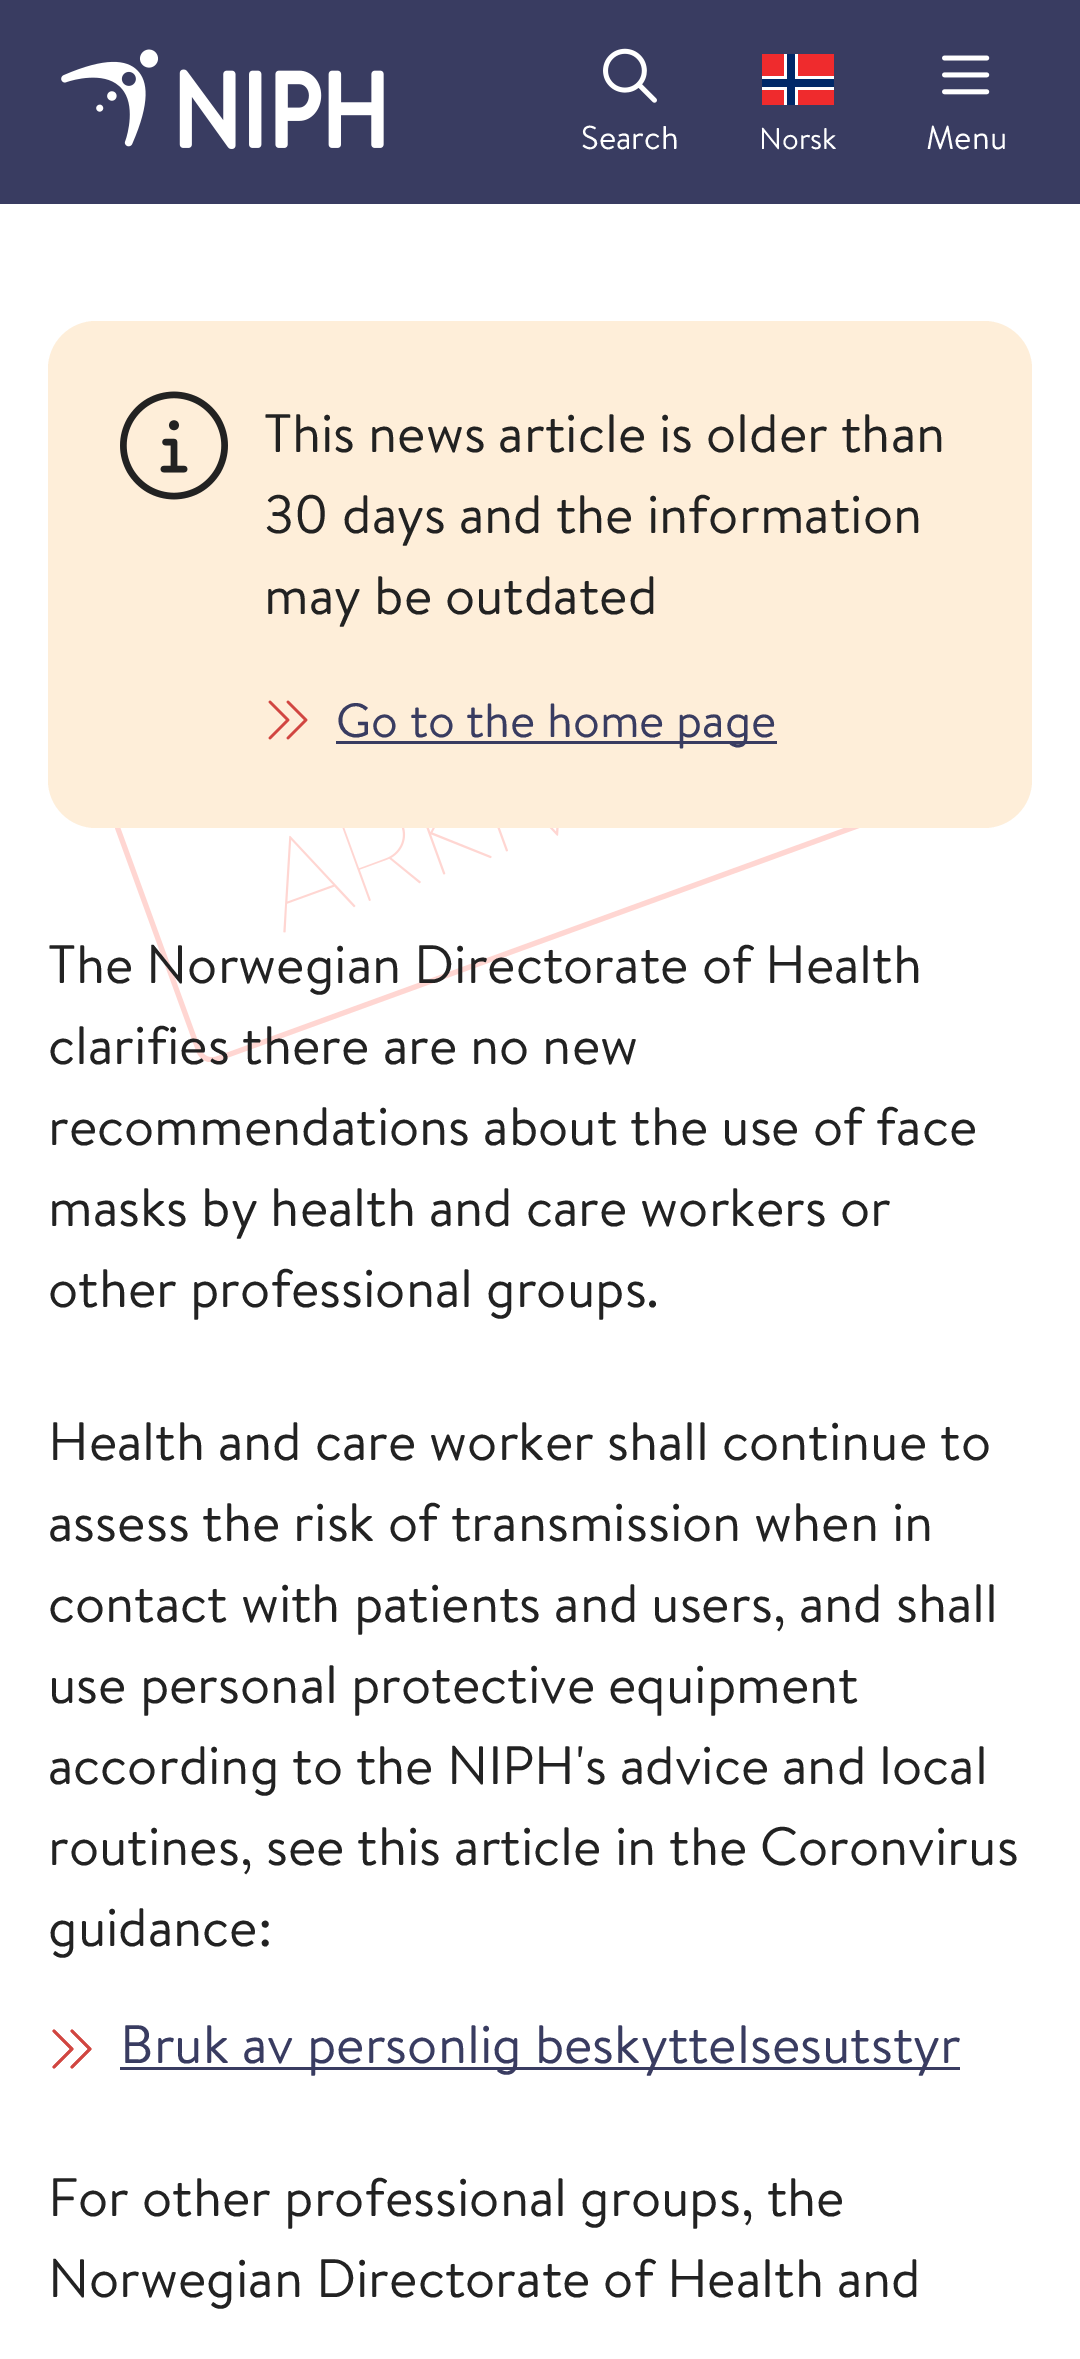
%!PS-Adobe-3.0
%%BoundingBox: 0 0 1080 2359
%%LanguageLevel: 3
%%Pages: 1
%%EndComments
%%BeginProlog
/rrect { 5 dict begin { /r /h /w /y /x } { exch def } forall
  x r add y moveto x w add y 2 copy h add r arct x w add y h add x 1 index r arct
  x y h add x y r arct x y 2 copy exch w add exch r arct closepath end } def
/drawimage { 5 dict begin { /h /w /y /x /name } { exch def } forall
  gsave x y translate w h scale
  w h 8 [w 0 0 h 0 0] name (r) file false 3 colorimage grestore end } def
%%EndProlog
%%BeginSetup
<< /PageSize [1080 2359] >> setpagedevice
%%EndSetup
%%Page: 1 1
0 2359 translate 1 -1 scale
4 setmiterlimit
1 setgray
0 0 1080 2359 rectfill
0.224 0.235 0.38 setrgbcolor
0 0 1080 204 rectfill
(images/1.raw) 61 49 323 100 drawimage
(images/2.raw) 603 48 54 55 drawimage
0.937 0.169 0.176 setrgbcolor
762 54 72 51 rectfill
1 setgray
784 54 14 51 rectfill
762 76 72 14 rectfill
0 0.157 0.408 setrgbcolor
787 54 8 51 rectfill
762 79 72 8 rectfill
(images/3.raw) 942 55 48 40 drawimage
0.996 0.933 0.851 setrgbcolor
48 321 984 507 48 rrect fill
(images/4.raw) 120 391 108 109 drawimage
(images/5.raw) 268 700 40 40 drawimage
0.224 0.235 0.38 setrgbcolor
336 741 441 3 rectfill
(images/6.raw) 115 828 745 234 drawimage
(images/7.raw) 52 2029 40 40 drawimage
(images/8.raw) 52 2029 40 40 drawimage
120 2067 840 3 rectfill
/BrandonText-Regular [33 0 0 -33 0 0] selectfont
1 setgray
581 149 moveto (Search) show
/BrandonText-Regular [30 0 0 -30 0 0] selectfont
759 149 moveto (Norsk) show
/BrandonText-Regular [33 0 0 -33 0 0] selectfont
926 149 moveto (Menu) show
/BrandonText-Regular [54 0 0 -54 0 0] selectfont
0.133 setgray
264 452 moveto (This news article is older than) show
264 533 moveto (30 days and the information) show
264 614 moveto (may be outdated) show
/BrandonText-Regular [48 0 0 -48 0 0] selectfont
0.224 0.235 0.38 setrgbcolor
336 737 moveto (Go to the home page) show
/BrandonText-Regular [54 0 0 -54 0 0] selectfont
0.133 setgray
48 983 moveto (The Norwegian Directorate of Health) show
48 1064 moveto (clarifies there are no new) show
48 1145 moveto (recommendations about the use of face) show
48 1226 moveto (masks by health and care workers or) show
48 1307 moveto (other professional groups.) show
48 1460 moveto (Health and care worker shall continue to) show
48 1541 moveto (assess the risk of transmission when in) show
48 1622 moveto (contact with patients and users, and shall) show
48 1703 moveto (use personal protective equipment) show
48 1784 moveto (according to the NIPH's advice and local) show
48 1865 moveto (routines, see this article in the Coronvirus) show
48 1946 moveto (guidance:) show
0.224 0.235 0.38 setrgbcolor
120 2063 moveto (Bruk av personlig beskyttelsesutstyr) show
0.133 setgray
48 2216 moveto (For other professional groups, the) show
48 2297 moveto (Norwegian Directorate of Health and) show
showpage
%%EOF
